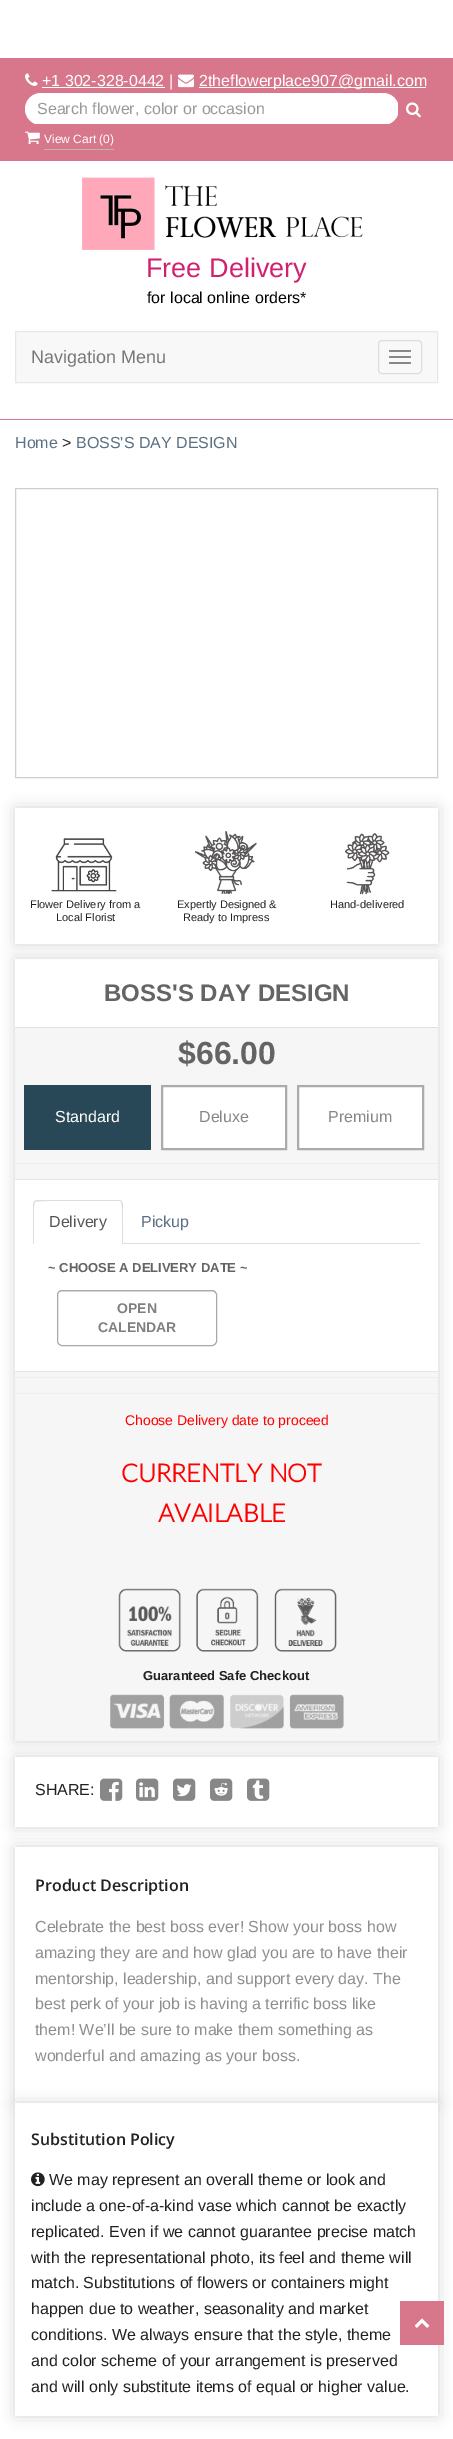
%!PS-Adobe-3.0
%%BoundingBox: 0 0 453 2439
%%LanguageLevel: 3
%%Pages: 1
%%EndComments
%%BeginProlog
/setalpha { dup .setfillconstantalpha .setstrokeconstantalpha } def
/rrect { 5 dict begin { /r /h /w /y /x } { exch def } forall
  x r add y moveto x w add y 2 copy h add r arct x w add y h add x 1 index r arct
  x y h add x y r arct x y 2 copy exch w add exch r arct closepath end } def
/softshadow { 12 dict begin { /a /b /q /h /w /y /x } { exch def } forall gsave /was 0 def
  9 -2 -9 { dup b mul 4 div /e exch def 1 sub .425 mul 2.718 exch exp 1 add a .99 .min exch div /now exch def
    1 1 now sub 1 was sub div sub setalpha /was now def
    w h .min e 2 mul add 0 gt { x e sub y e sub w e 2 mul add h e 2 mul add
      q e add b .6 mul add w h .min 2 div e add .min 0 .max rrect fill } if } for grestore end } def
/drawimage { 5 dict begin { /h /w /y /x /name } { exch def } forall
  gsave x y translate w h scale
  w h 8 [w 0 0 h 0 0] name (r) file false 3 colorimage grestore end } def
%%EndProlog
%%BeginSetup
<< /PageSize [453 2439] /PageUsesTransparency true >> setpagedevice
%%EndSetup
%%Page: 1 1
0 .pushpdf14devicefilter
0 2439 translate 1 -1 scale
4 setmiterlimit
1 setgray
0 0 453 2439 rectfill
0.847 0.467 0.545 setrgbcolor
0 419 453 1 rectfill
0 58 453 103 rectfill
(images/1.raw) 25 73 13 13 drawimage
1 setgray
42 87 123 1 rectfill
(images/2.raw) 178 74 16 14 drawimage
199 87 227 1 rectfill
25 93 374 32 16 rrect fill
0.847 0.467 0.545 setrgbcolor
33 124 358 1 rectfill
newpath 398 100 moveto 424 100 lineto 426 100 428 102 428 104 curveto 428 114 lineto 428 116 426 118 424 118 curveto 398 118 lineto closepath fill
(images/3.raw) 406 102 15 16 drawimage
(images/4.raw) 25 131 15 14 drawimage
0.718 setgray
44 149 70 1 rectfill
(images/5.raw) 82 177 281 73 drawimage
0.973 setgray
newpath 15.5 331.5 moveto 437.5 331.5 lineto 437.5 382.5 lineto 15.5 382.5 lineto closepath gsave fill grestore
0.906 setgray
stroke
0.867 setgray
378.5 340.5 43 33 3.5 rrect stroke
0.533 setgray
389 350 22 2 1 rrect fill
389 356 22 2 1 rrect fill
389 362 22 2 1 rrect fill
0.808 setgray
15.5 488.5 422 289 rectstroke
gsave
newpath 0 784 moveto 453 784 lineto 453 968 lineto 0 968 lineto closepath 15 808 moveto 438 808 lineto 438 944 lineto 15 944 lineto closepath eoclip newpath
0.831 setgray
15 808 423 136 0 7.5 1 softshadow
grestore
(images/6.raw) 51 838 66 54 drawimage
(images/7.raw) 195 831 62 63 drawimage
(images/8.raw) 345 833 45 62 drawimage
gsave
newpath 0 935 moveto 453 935 lineto 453 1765 lineto 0 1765 lineto closepath 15 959 moveto 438 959 lineto 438 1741 lineto 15 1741 lineto closepath eoclip newpath
0.831 setgray
15 959 423 782 0 7.5 1 softshadow
grestore
0.878 setgray
15 1027 423 1 rectfill
0.965 setgray
15 1028 423 713 rectfill
0.161 0.282 0.341 setrgbcolor
24 1085 127 65 rectfill
1 setgray
newpath 162 1086 moveto 286 1086 lineto 286 1149 lineto 162 1149 lineto closepath gsave fill grestore
0.671 setgray
2 setlinewidth
stroke
1 setgray
newpath 298 1086 moveto 423 1086 lineto 423 1149 lineto 298 1149 lineto closepath gsave fill grestore
0.671 setgray
stroke
0.933 setgray
15 1163 423 1 rectfill
1 setgray
15 1180 423 191 rectfill
0.898 setgray
15 1179 423 1 rectfill
15 1371 423 1 rectfill
0.867 setgray
123 1243 297 1 rectfill
newpath 37 1200 moveto 34 1201 lineto 35 1202 lineto 37 1200 98 1201 105 1201 curveto 119 1201 lineto 121 1202 lineto 122 1201 lineto 119 1200 lineto closepath fill
newpath 123 1244 moveto 123 1204 lineto 123 1203 122 1202 122 1201 curveto 121 1202 lineto 123 1204 122 1238 122 1243 curveto closepath fill
newpath 33 1244 moveto 34 1243 lineto 34 1238 33 1204 35 1202 curveto 34 1201 lineto 33 1204 lineto closepath fill
0.663 setgray
1 setlinewidth
57.5 1290.5 159 55 4.5 rrect stroke
gsave
58 1291 158 54 4 rrect clip newpath
0.07 setalpha
0 setgray
58 1291 158 1 rectfill
grestore
0.933 setgray
15 1377 423 1 rectfill
15 1393 423 1 rectfill
(images/9.raw) 118 1588 219 64 drawimage
(images/10.raw) 110 1694 234 35 drawimage
gsave
newpath 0 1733 moveto 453 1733 lineto 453 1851 lineto 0 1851 lineto closepath 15 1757 moveto 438 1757 lineto 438 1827 lineto 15 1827 lineto closepath eoclip newpath
0.831 setgray
15 1757 423 70 0 7.5 1 softshadow
grestore
(images/11.raw) 100 1778 23 23 drawimage
(images/12.raw) 136 1778 23 23 drawimage
(images/13.raw) 173 1778 23 23 drawimage
(images/14.raw) 210 1778 23 23 drawimage
(images/15.raw) 247 1778 23 23 drawimage
gsave
newpath 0 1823 moveto 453 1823 lineto 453 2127 lineto 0 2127 lineto closepath 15 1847 moveto 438 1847 lineto 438 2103 lineto 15 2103 lineto closepath eoclip newpath
0.831 setgray
15 1847 423 256 0 7.5 1 softshadow
grestore
0.831 setgray
15 2103 423 313 0 7.5 1 softshadow
1 setgray
15 2103 423 313 rectfill
(images/16.raw) 31 2172 14 15 drawimage
0.847 0.467 0.545 setrgbcolor
400 2301 44 44 rectfill
(images/17.raw) 414 2318 16 10 drawimage
/LiberationSans-Regular [16 0 0 -16 0 0] selectfont
1 setgray
42 86 moveto (+1 302-328-0442 |) show
199 86 moveto (2theflowerplace907@gmail.com) show
0.6 setgray
37 114 moveto (Search flower, color or occasion) show
/LiberationSans-Regular [12 0 0 -12 0 0] selectfont
1 setgray
44 143 moveto (View Cart \(0\)) show
/LiberationSans-Regular [27 0 0 -27 0 0] selectfont
0.824 0.125 0.439 setrgbcolor
146 277 moveto (Free Delivery) show
/LiberationSans-Regular [16 0 0 -16 0 0] selectfont
0 setgray
147 303 moveto (for local online orders*) show
/LiberationSans-Regular [18 0 0 -18 0 0] selectfont
0.467 setgray
31 363 moveto (Navigation Menu) show
/LiberationSans-Regular [16 0 0 -16 0 0] selectfont
0.357 0.439 0.514 setrgbcolor
15 448 moveto (Home) show
0.129 setgray
62 448 moveto (>) show
0.357 0.439 0.514 setrgbcolor
76 448 moveto (BOSS'S DAY DESIGN) show
/LiberationSans-Regular [11 0 0 -11 0 0] selectfont
0.129 setgray
30 908 moveto (Flower Delivery from a) show
56 921 moveto (Local Florist) show
177 908 moveto (Expertly Designed &) show
183 921 moveto (Ready to Impress) show
330 908 moveto (Hand-delivered) show
/LiberationSans-Bold [24 0 0 -24 0 0] selectfont
0.392 setgray
104 1001 moveto (BOSS'S DAY DESIGN) show
/LiberationSans-Bold [32 0 0 -32 0 0] selectfont
178 1064 moveto ($66.00) show
/LiberationSans-Regular [16 0 0 -16 0 0] selectfont
1 setgray
55 1122 moveto (Standard) show
0.525 setgray
199 1122 moveto (Deluxe) show
328 1122 moveto (Premium) show
0.333 setgray
49 1227 moveto (Delivery) show
0.357 0.439 0.514 setrgbcolor
141 1227 moveto (Pickup) show
/LiberationSans-Bold [13 0 0 -13 0 0] selectfont
0.392 setgray
48 1272 moveto (~ CHOOSE A DELIVERY DATE ~) show
/LiberationSans-Bold [14 0 0 -14 0 0] selectfont
0.502 setgray
117 1313 moveto (OPEN) show
98 1332 moveto (CALENDAR) show
/LiberationSans-Regular [14 0 0 -14 0 0] selectfont
1 0 0 setrgbcolor
125 1425 moveto (Choose Delivery date to proceed) show
/Lato-Bold [25 0 0 -25 0 0] selectfont
121 1482 moveto (CURRENTLY NOT) show
158 1522 moveto (AVAILABLE) show
/LiberationSans-Bold [13 0 0 -13 0 0] selectfont
0.129 setgray
143 1680 moveto (Guaranteed Safe Checkout) show
/LiberationSans-Regular [16 0 0 -16 0 0] selectfont
35 1795 moveto (SHARE:) show
/OpenSans-SemiBold [16 0 0 -16 0 0] selectfont
35 1891 moveto (Product Description) show
/LiberationSans-Regular [16 0 0 -16 0 0] selectfont
0.557 setgray
35 1932 moveto (Celebrate the best boss ever! Show your boss how) show
35 1958 moveto (amazing they are and how glad you are to have their) show
35 1984 moveto (mentorship, leadership, and support every day. The) show
35 2009 moveto (best perk of your job is having a terrific boss like) show
35 2035 moveto (them! We’ll be sure to make them something as) show
35 2061 moveto (wonderful and amazing as your boss.) show
/OpenSans-SemiBold [16 0 0 -16 0 0] selectfont
0.129 setgray
31 2145 moveto (Substitution Policy) show
/LiberationSans-Regular [16 0 0 -16 0 0] selectfont
49 2185 moveto (We may represent an overall theme or look and) show
31 2211 moveto (include a one-of-a-kind vase which cannot be exactly) show
31 2237 moveto (replicated. Even if we cannot guarantee precise match) show
31 2263 moveto (with the representational photo, its feel and theme will) show
31 2288 moveto (match. Substitutions of flowers or containers might) show
31 2314 moveto (happen due to weather, seasonality and market) show
31 2340 moveto (conditions. We always ensure that the style, theme) show
31 2366 moveto (and color scheme of your arrangement is preserved) show
31 2392 moveto (and will only substitute items of equal or higher value.) show
.poppdf14devicefilter showpage
%%EOF
